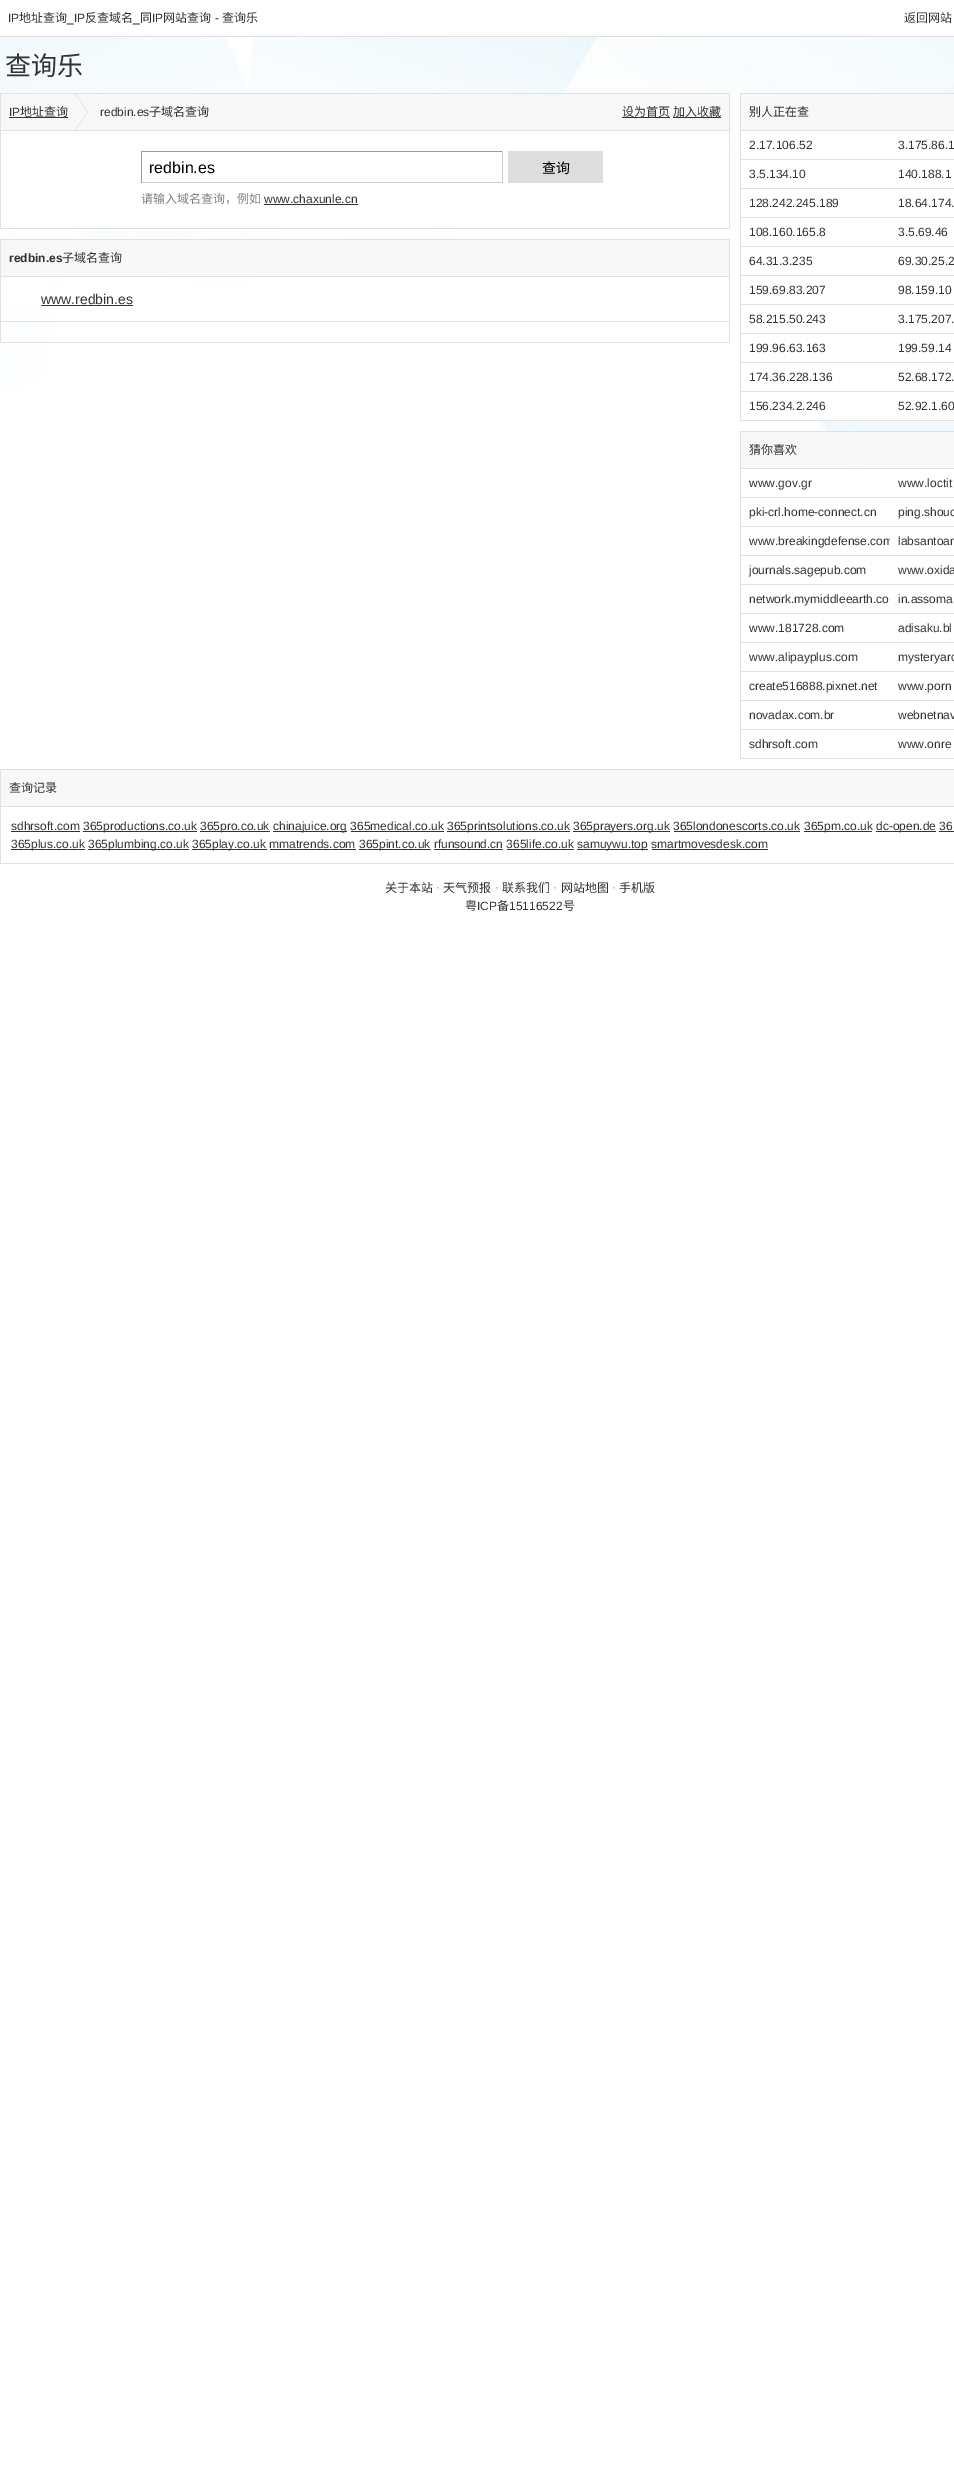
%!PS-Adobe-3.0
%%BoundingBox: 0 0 954 2485
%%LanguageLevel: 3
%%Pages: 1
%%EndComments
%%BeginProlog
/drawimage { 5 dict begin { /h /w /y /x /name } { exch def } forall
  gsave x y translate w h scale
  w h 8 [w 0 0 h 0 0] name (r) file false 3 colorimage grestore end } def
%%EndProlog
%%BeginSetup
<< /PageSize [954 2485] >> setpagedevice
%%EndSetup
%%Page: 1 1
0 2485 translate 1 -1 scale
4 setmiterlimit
1 setgray
0 0 954 2485 rectfill
(images/1.raw) 0 37 954 511 drawimage
0.882 setgray
0 36 954 1 rectfill
1 setgray
1 131 728 97 rectfill
0.882 setgray
729 93 1 136 rectfill
0 228 730 1 rectfill
0 93 1 136 rectfill
0.973 setgray
1 94 728 36 rectfill
0.882 setgray
1 93 728 1 rectfill
1 130 728 1 rectfill
(images/2.raw) 75 94 13 36 drawimage
0.2 setgray
9 117 59 1 rectfill
622 117 48 1 rectfill
673 117 48 1 rectfill
0.604 setgray
141 151 362 1 rectfill
0.804 setgray
502 151 1 32 rectfill
141 182 362 1 rectfill
0.604 setgray
141 151 1 32 rectfill
0.867 setgray
508 151 95 32 rectfill
0.2 setgray
264 204 94 1 rectfill
1 setgray
1 277 45 31 rectfill
0.882 setgray
729 239 1 104 rectfill
0 342 730 1 rectfill
0 239 1 104 rectfill
0.973 setgray
1 240 728 36 rectfill
0.882 setgray
1 239 728 1 rectfill
1 276 728 1 rectfill
0.2 setgray
41 305 92 1 rectfill
0.882 setgray
1 321 728 1 rectfill
1 setgray
741 131 213 289 rectfill
0.882 setgray
740 420 214 1 rectfill
740 93 1 328 rectfill
0.973 setgray
741 94 213 36 rectfill
0.882 setgray
741 93 213 1 rectfill
741 130 213 1 rectfill
741 159 213 1 rectfill
741 188 213 1 rectfill
741 217 213 1 rectfill
741 246 213 1 rectfill
741 275 213 1 rectfill
741 304 213 1 rectfill
741 333 213 1 rectfill
741 362 213 1 rectfill
741 391 213 1 rectfill
1 setgray
860 469 94 79 rectfill
0.882 setgray
740 758 214 1 rectfill
740 431 1 328 rectfill
0.973 setgray
741 432 213 36 rectfill
0.882 setgray
741 431 213 1 rectfill
741 468 213 1 rectfill
741 497 213 1 rectfill
741 526 213 1 rectfill
741 555 213 1 rectfill
741 584 213 1 rectfill
741 613 213 1 rectfill
741 642 213 1 rectfill
741 671 213 1 rectfill
741 700 213 1 rectfill
741 729 213 1 rectfill
0 863 954 1 rectfill
0 769 1 95 rectfill
0.973 setgray
1 770 953 36 rectfill
0.882 setgray
1 769 953 1 rectfill
1 806 953 1 rectfill
0.2 setgray
11 831 69 1 rectfill
83 831 114 1 rectfill
200 831 70 1 rectfill
273 831 74 1 rectfill
447 831 123 1 rectfill
573 831 97 1 rectfill
804 831 68 1 rectfill
876 831 60 1 rectfill
351 831 93 1 rectfill
674 831 126 1 rectfill
939 831 15 1 rectfill
11 849 74 1 rectfill
88 849 101 1 rectfill
192 849 75 1 rectfill
359 849 72 1 rectfill
577 849 71 1 rectfill
270 849 86 1 rectfill
434 849 69 1 rectfill
507 849 67 1 rectfill
652 849 116 1 rectfill
/LiberationSans-Regular [12 0 0 -12 0 0] selectfont
8 22 moveto (IP) show
/NotoSansCJKSC-Regular [12 0 0 -12 0 0] selectfont
19 22 moveto (地址查询) show
/LiberationSans-Regular [12 0 0 -12 0 0] selectfont
67 22 moveto (_IP) show
/NotoSansCJKSC-Regular [12 0 0 -12 0 0] selectfont
85 22 moveto (反查域名) show
140 22 moveto (同) show
/LiberationSans-Regular [12 0 0 -12 0 0] selectfont
152 22 moveto (IP) show
/NotoSansCJKSC-Regular [12 0 0 -12 0 0] selectfont
163 22 moveto (网站查询) show
/LiberationSans-Regular [12 0 0 -12 0 0] selectfont
215 22 moveto (-) show
/NotoSansCJKSC-Regular [12 0 0 -12 0 0] selectfont
222 22 moveto (查询乐) show
/LiberationSans-Regular [12 0 0 -12 0 0] selectfont
133 22 moveto (_) show
/NotoSansCJKSC-Regular [12 0 0 -12 0 0] selectfont
904 22 moveto (返回网站) show
/NotoSansCJKSC-Regular [26 0 0 -26 0 0] selectfont
5 75 moveto (查询乐) show
/LiberationSans-Regular [12 0 0 -12 0 0] selectfont
9 116 moveto (IP) show
/NotoSansCJKSC-Regular [12 0 0 -12 0 0] selectfont
20 116 moveto (地址查询) show
/LiberationSans-Regular [12 0 0 -12 0 0] selectfont
100 116 moveto (redbin.es) show
/NotoSansCJKSC-Regular [12 0 0 -12 0 0] selectfont
149 116 moveto (子域名查询) show
622 116 moveto (设为首页) show
673 116 moveto (加入收藏) show
/LiberationSans-Regular [16 0 0 -16 0 0] selectfont
0 setgray
149 173 moveto (redbin.es) show
/NotoSansCJKSC-Regular [14 0 0 -14 0 0] selectfont
542 173 moveto (查询) show
/NotoSansCJKSC-Regular [12 0 0 -12 0 0] selectfont
0.502 setgray
141 203 moveto (请输入域名查询，例如) show
/LiberationSans-Regular [12 0 0 -12 0 0] selectfont
0.2 setgray
264 203 moveto (www.chaxunle.cn) show
/LiberationSans-Bold [12 0 0 -12 0 0] selectfont
9 262 moveto (redbin.es) show
/NotoSansCJKSC-Regular [12 0 0 -12 0 0] selectfont
62 262 moveto (子域名查询) show
/LiberationSans-Regular [14 0 0 -14 0 0] selectfont
41 304 moveto (www.redbin.es) show
/NotoSansCJKSC-Regular [12 0 0 -12 0 0] selectfont
749 116 moveto (别人正在查) show
/LiberationSans-Regular [12 0 0 -12 0 0] selectfont
749 149 moveto (2.17.106.52) show
898 149 moveto (3.175.86.1) show
749 178 moveto (3.5.134.10) show
898 178 moveto (140.188.1) show
749 207 moveto (128.242.245.189) show
898 207 moveto (18.64.174.) show
749 236 moveto (108.160.165.8) show
898 236 moveto (3.5.69.46) show
749 265 moveto (64.31.3.235) show
898 265 moveto (69.30.25.2) show
749 294 moveto (159.69.83.207) show
898 294 moveto (98.159.10) show
749 323 moveto (58.215.50.243) show
898 323 moveto (3.175.207.) show
749 352 moveto (199.96.63.163) show
898 352 moveto (199.59.14) show
749 381 moveto (174.36.228.136) show
898 381 moveto (52.68.172.) show
749 410 moveto (156.234.2.246) show
898 410 moveto (52.92.1.60) show
/NotoSansCJKSC-Regular [12 0 0 -12 0 0] selectfont
749 454 moveto (猜你喜欢) show
/LiberationSans-Regular [12 0 0 -12 0 0] selectfont
749 487 moveto (www.gov.gr) show
898 487 moveto (www.loctit) show
749 516 moveto (pki-crl.home-connect.cn) show
898 516 moveto (ping.shouc) show
gsave
741 527 149 28 rectclip
749 545 moveto (www.breakingdefense.com) show
grestore
898 545 moveto (labsantoan) show
749 574 moveto (journals.sagepub.com) show
898 574 moveto (www.oxida) show
749 603 moveto (network.mymiddleearth.co) show
898 603 moveto (in.assoma) show
749 632 moveto (www.181728.com) show
898 632 moveto (adisaku.bl) show
749 661 moveto (www.alipayplus.com) show
898 661 moveto (mysteryarc) show
749 690 moveto (create516888.pixnet.net) show
898 690 moveto (www.porn) show
749 719 moveto (novadax.com.br) show
898 719 moveto (webnetnav) show
749 748 moveto (sdhrsoft.com) show
898 748 moveto (www.onre) show
/NotoSansCJKSC-Regular [12 0 0 -12 0 0] selectfont
9 792 moveto (查询记录) show
/LiberationSans-Regular [12 0 0 -12 0 0] selectfont
11 830 moveto (sdhrsoft.com) show
83 830 moveto (365productions.co.uk) show
200 830 moveto (365pro.co.uk) show
273 830 moveto (chinajuice.org 365medical.co.uk) show
447 830 moveto (365printsolutions.co.uk) show
573 830 moveto (365prayers.org.uk 365londonescorts.co.uk) show
804 830 moveto (365pm.co.uk) show
876 830 moveto (dc-open.de 36) show
11 848 moveto (365plus.co.uk) show
88 848 moveto (365plumbing.co.uk) show
192 848 moveto (365play.co.uk mmatrends.com) show
359 848 moveto (365pint.co.uk rfunsound.cn 365life.co.uk) show
577 848 moveto (samuywu.top smartmovesdesk.com) show
/NotoSansCJKSC-Regular [12 0 0 -12 0 0] selectfont
385 892 moveto (关于本站) show
/DejaVuSans-Regular [12 0 0 -12 0 0] selectfont
0.667 setgray
436 892 moveto (⋅) show
/NotoSansCJKSC-Regular [12 0 0 -12 0 0] selectfont
0.2 setgray
443 892 moveto (天气预报) show
/DejaVuSans-Regular [12 0 0 -12 0 0] selectfont
0.667 setgray
495 892 moveto (⋅) show
/NotoSansCJKSC-Regular [12 0 0 -12 0 0] selectfont
0.2 setgray
502 892 moveto (联系我们) show
/DejaVuSans-Regular [12 0 0 -12 0 0] selectfont
0.667 setgray
553 892 moveto (⋅) show
/NotoSansCJKSC-Regular [12 0 0 -12 0 0] selectfont
0.2 setgray
561 892 moveto (网站地图) show
/DejaVuSans-Regular [12 0 0 -12 0 0] selectfont
0.667 setgray
612 892 moveto (⋅) show
/NotoSansCJKSC-Regular [12 0 0 -12 0 0] selectfont
0.2 setgray
619 892 moveto (手机版) show
465 910 moveto (粤) show
/LiberationSans-Regular [12 0 0 -12 0 0] selectfont
477 910 moveto (ICP) show
/NotoSansCJKSC-Regular [12 0 0 -12 0 0] selectfont
497 910 moveto (备) show
/LiberationSans-Regular [12 0 0 -12 0 0] selectfont
509 910 moveto (15116522) show
/NotoSansCJKSC-Regular [12 0 0 -12 0 0] selectfont
563 910 moveto (号) show
showpage
%%EOF
